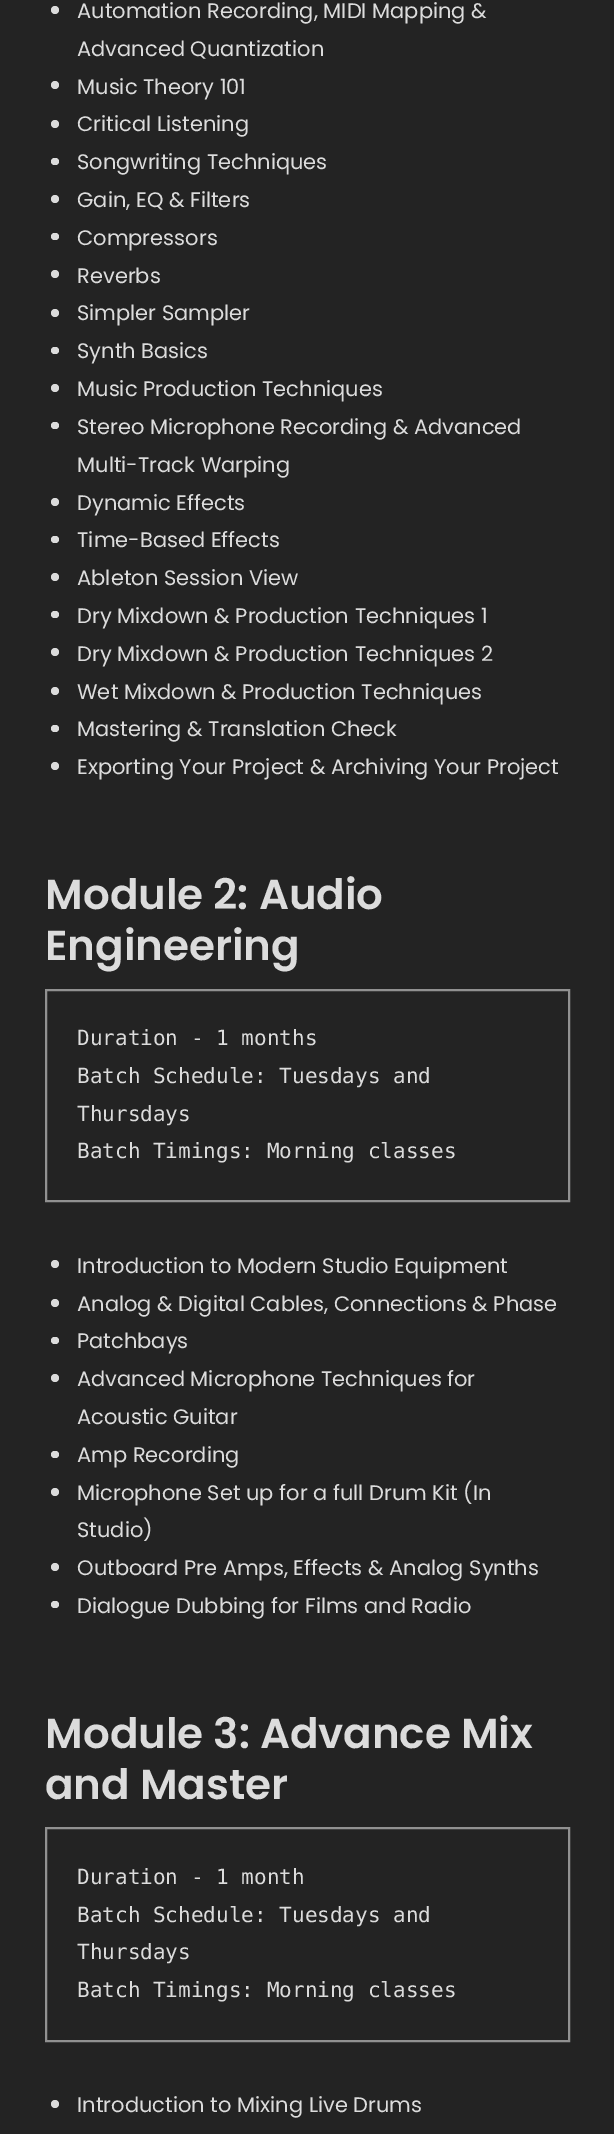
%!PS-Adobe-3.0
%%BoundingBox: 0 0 614 2134
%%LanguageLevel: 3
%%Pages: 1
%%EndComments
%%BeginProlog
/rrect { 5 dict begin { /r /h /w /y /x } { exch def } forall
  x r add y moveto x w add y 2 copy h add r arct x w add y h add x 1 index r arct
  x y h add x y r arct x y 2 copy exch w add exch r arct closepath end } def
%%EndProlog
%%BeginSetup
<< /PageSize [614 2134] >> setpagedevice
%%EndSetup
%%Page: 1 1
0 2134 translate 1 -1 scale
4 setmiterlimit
0.137 setgray
0 0 614 2134 rectfill
0.863 setgray
newpath 55 10 4 0 360 arc closepath fill
newpath 55 85 4 0 360 arc closepath fill
newpath 55 124 4 0 360 arc closepath fill
51 158 8 7 3.5 rrect fill
newpath 55 199 4 0 360 arc closepath fill
51 233 8 7 3.5 rrect fill
newpath 55 274 4 0 360 arc closepath fill
newpath 55 313 4 0 360 arc closepath fill
51 347 8 7 3.5 rrect fill
newpath 55 388 4 0 360 arc closepath fill
51 422 8 7 3.5 rrect fill
newpath 55 502 4 0 360 arc closepath fill
51 536 8 7 3.5 rrect fill
newpath 55 577 4 0 360 arc closepath fill
51 611 8 7 3.5 rrect fill
newpath 55 652 4 0 360 arc closepath fill
newpath 55 691 4 0 360 arc closepath fill
51 725 8 7 3.5 rrect fill
newpath 55 766 4 0 360 arc closepath fill
0.569 setgray
2 setlinewidth
46 990 523 211 rectstroke
0.863 setgray
newpath 55 1264 4 0 360 arc closepath fill
newpath 55 1303 4 0 360 arc closepath fill
51 1337 8 7 3.5 rrect fill
newpath 55 1378 4 0 360 arc closepath fill
51 1451 8 7 3.5 rrect fill
newpath 55 1492 4 0 360 arc closepath fill
newpath 55 1567 4 0 360 arc closepath fill
51 1601 8 7 3.5 rrect fill
0.569 setgray
46 1828 523 213 rectstroke
0.863 setgray
newpath 55 2104 4 0 360 arc closepath fill
/Poppins-Regular [21 0 0 -21 0 0] selectfont
77 18 moveto (Automation Recording, MIDI Mapping &) show
77 56 moveto (Advanced Quantization) show
77 94 moveto (Music Theory 101) show
77 131 moveto (Critical Listening) show
77 169 moveto (Songwriting Techniques) show
77 207 moveto (Gain, EQ & Filters) show
77 245 moveto (Compressors) show
77 283 moveto (Reverbs) show
77 320 moveto (Simpler Sampler) show
77 358 moveto (Synth Basics) show
77 396 moveto (Music Production Techniques) show
77 434 moveto (Stereo Microphone Recording & Advanced) show
77 472 moveto (Multi-Track Warping) show
77 510 moveto (Dynamic Effects) show
77 547 moveto (Time-Based Effects) show
77 585 moveto (Ableton Session View) show
77 623 moveto (Dry Mixdown & Production Techniques 1) show
77 661 moveto (Dry Mixdown & Production Techniques 2) show
77 699 moveto (Wet Mixdown & Production Techniques) show
77 736 moveto (Mastering & Translation Check) show
77 774 moveto (Exporting Your Project & Archiving Your Project) show
/Poppins-SemiBold [42 0 0 -42 0 0] selectfont
45 909 moveto (Module 2: Audio) show
45 960 moveto (Engineering) show
/DejaVuSansMono-Regular [21 0 0 -21 0 0] selectfont
77 1045 moveto (Duration - 1 months) show
77 1083 moveto (Batch Schedule: Tuesdays and) show
77 1121 moveto (Thursdays) show
77 1158 moveto (Batch Timings: Morning classes) show
/Poppins-Regular [21 0 0 -21 0 0] selectfont
77 1273 moveto (Introduction to Modern Studio Equipment) show
77 1311 moveto (Analog & Digital Cables, Connections & Phase) show
77 1348 moveto (Patchbays) show
77 1386 moveto (Advanced Microphone Techniques for) show
77 1424 moveto (Acoustic Guitar) show
77 1462 moveto (Amp Recording) show
77 1500 moveto (Microphone Set up for a full Drum Kit \(In) show
77 1537 moveto (Studio\)) show
77 1575 moveto (Outboard Pre Amps, Effects & Analog Synths) show
77 1613 moveto (Dialogue Dubbing for Films and Radio) show
/Poppins-SemiBold [42 0 0 -42 0 0] selectfont
45 1748 moveto (Module 3: Advance Mix) show
45 1799 moveto (and Master) show
/DejaVuSansMono-Regular [21 0 0 -21 0 0] selectfont
77 1884 moveto (Duration - 1 month) show
77 1922 moveto (Batch Schedule: Tuesdays and) show
77 1959 moveto (Thursdays) show
77 1997 moveto (Batch Timings: Morning classes) show
/Poppins-Regular [21 0 0 -21 0 0] selectfont
77 2112 moveto (Introduction to Mixing Live Drums) show
showpage
%%EOF
